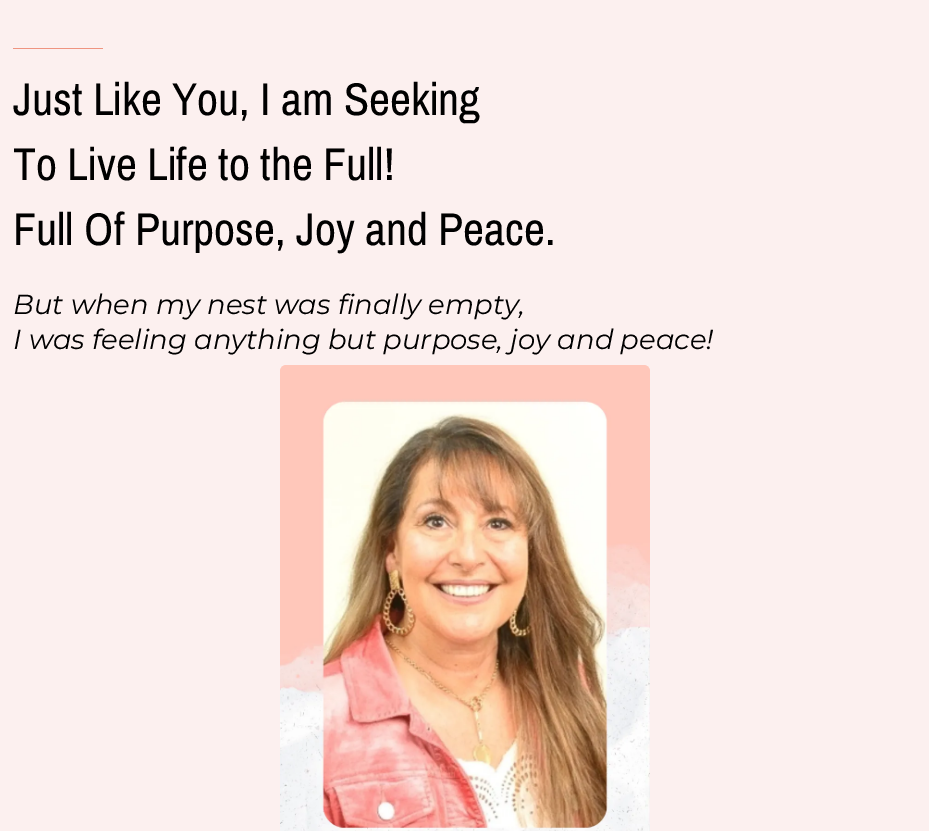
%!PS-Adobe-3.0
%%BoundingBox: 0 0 929 831
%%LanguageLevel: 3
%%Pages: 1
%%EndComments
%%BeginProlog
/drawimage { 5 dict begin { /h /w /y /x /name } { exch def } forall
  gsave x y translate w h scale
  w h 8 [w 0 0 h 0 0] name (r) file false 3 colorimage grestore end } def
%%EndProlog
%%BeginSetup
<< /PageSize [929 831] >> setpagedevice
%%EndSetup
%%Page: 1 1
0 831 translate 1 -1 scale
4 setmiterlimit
0.988 0.941 0.937 setrgbcolor
0 0 929 831 rectfill
0.937 0.584 0.506 setrgbcolor
13 48 90 1 rectfill
(images/1.raw) 280 365 370 466 drawimage
/PragatiNarrow-Regular [50 0 0 -50 0 0] selectfont
0 setgray
13 115 moveto (Just Like You, I am Seeking) show
13 180 moveto (To Live Life to the Full!) show
13 245 moveto (Full Of Purpose, Joy and Peace.) show
/Montserrat-Italic [27.5 0 0 -27.5 0 0] selectfont
13 314 moveto (But when my nest was finally empty,) show
13 349 moveto (I was feeling anything but purpose, joy and peace!) show
showpage
%%EOF
